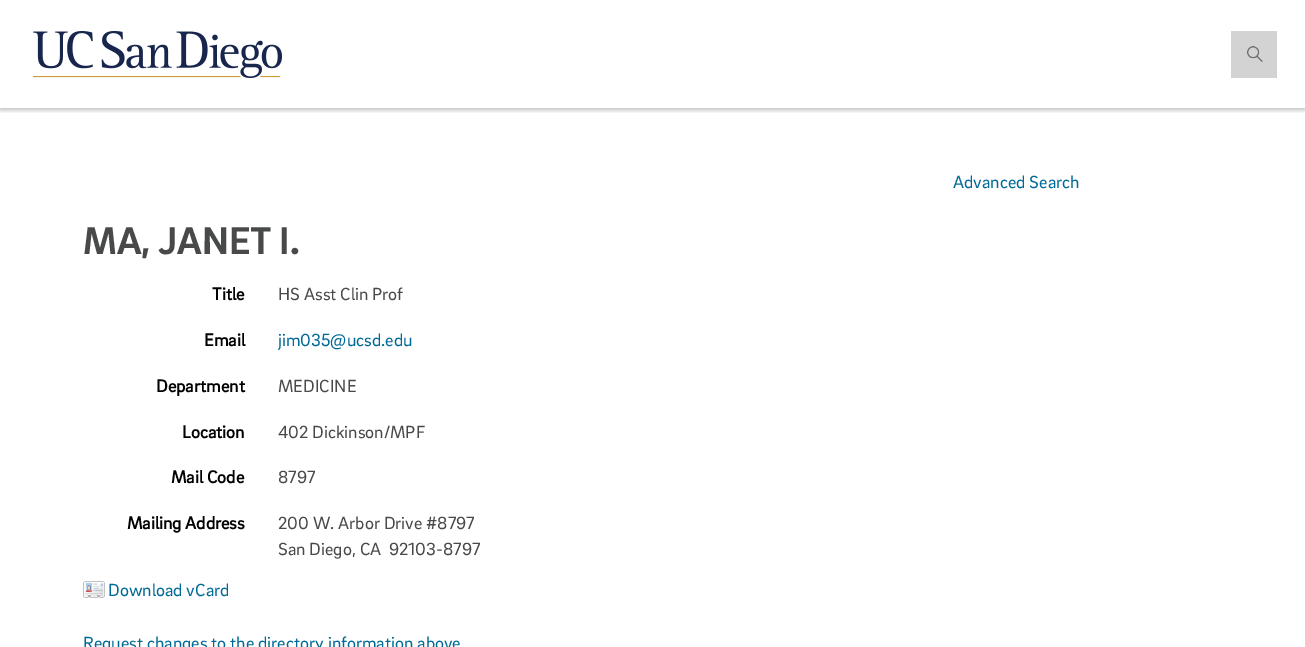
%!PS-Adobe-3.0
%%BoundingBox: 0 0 1305 647
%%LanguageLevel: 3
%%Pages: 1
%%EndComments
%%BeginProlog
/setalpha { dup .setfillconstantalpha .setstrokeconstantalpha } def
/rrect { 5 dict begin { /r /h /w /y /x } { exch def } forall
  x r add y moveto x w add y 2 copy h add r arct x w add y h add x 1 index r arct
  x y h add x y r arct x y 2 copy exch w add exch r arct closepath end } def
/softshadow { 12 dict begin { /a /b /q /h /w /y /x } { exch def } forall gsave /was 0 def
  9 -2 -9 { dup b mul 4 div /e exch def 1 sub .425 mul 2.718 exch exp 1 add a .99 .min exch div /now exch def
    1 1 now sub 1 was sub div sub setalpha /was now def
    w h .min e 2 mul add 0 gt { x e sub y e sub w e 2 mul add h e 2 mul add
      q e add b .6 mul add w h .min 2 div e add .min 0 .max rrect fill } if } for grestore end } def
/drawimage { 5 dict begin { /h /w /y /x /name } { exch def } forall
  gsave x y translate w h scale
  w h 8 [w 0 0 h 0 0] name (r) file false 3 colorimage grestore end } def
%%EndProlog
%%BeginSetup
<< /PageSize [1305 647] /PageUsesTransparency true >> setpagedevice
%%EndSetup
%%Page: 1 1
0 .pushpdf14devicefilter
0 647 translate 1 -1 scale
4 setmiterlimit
1 setgray
0 0 1305 647 rectfill
gsave
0 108 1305 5 rectclip
0 setgray
0 2 1305 108 0 2.5 0.25 softshadow
grestore
(images/1.raw) 33 31 249 47 drawimage
0.827 setgray
1231 31 46 47 rectfill
(images/2.raw) 1247 46 16 16 drawimage
(images/3.raw) 83 581 22 17 drawimage
/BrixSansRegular-Regular [18 0 0 -18 0 0] selectfont
0 0.416 0.588 setrgbcolor
953 188 moveto (Advanced Search) show
/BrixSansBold-Regular [39.5 0 0 -39.5 0 0] selectfont
0.282 0.286 0.286 setrgbcolor
83 254 moveto (MA, JANET I.) show
/BrixSansRegular-Bold [18 0 0 -18 0 0] selectfont
0 setgray
212 300 moveto (Title) show
/BrixSansRegular-Regular [18 0 0 -18 0 0] selectfont
0.282 0.286 0.286 setrgbcolor
278 300 moveto (HS Asst Clin Prof) show
/BrixSansRegular-Bold [18 0 0 -18 0 0] selectfont
0 setgray
204 346 moveto (Email) show
/BrixSansRegular-Regular [18 0 0 -18 0 0] selectfont
0 0.416 0.588 setrgbcolor
278 346 moveto (jim035@ucsd.edu) show
/BrixSansRegular-Bold [18 0 0 -18 0 0] selectfont
0 setgray
156 392 moveto (Department) show
/BrixSansRegular-Regular [18 0 0 -18 0 0] selectfont
0.282 0.286 0.286 setrgbcolor
278 392 moveto (MEDICINE) show
/BrixSansRegular-Bold [18 0 0 -18 0 0] selectfont
0 setgray
182 438 moveto (Location) show
/BrixSansRegular-Regular [18 0 0 -18 0 0] selectfont
0.282 0.286 0.286 setrgbcolor
278 438 moveto (402 Dickinson/MPF) show
/BrixSansRegular-Bold [18 0 0 -18 0 0] selectfont
0 setgray
171 483 moveto (Mail Code) show
/BrixSansRegular-Regular [18 0 0 -18 0 0] selectfont
0.282 0.286 0.286 setrgbcolor
278 483 moveto (8797) show
/BrixSansRegular-Bold [18 0 0 -18 0 0] selectfont
0 setgray
127 529 moveto (Mailing Address) show
/BrixSansRegular-Regular [18 0 0 -18 0 0] selectfont
0.282 0.286 0.286 setrgbcolor
278 529 moveto (200 W. Arbor Drive #8797) show
278 555 moveto (San Diego, CA  92103-8797) show
0 0.416 0.588 setrgbcolor
108 596 moveto (Download vCard) show
83 649 moveto (Request changes to the directory information above) show
.poppdf14devicefilter showpage
%%EOF
